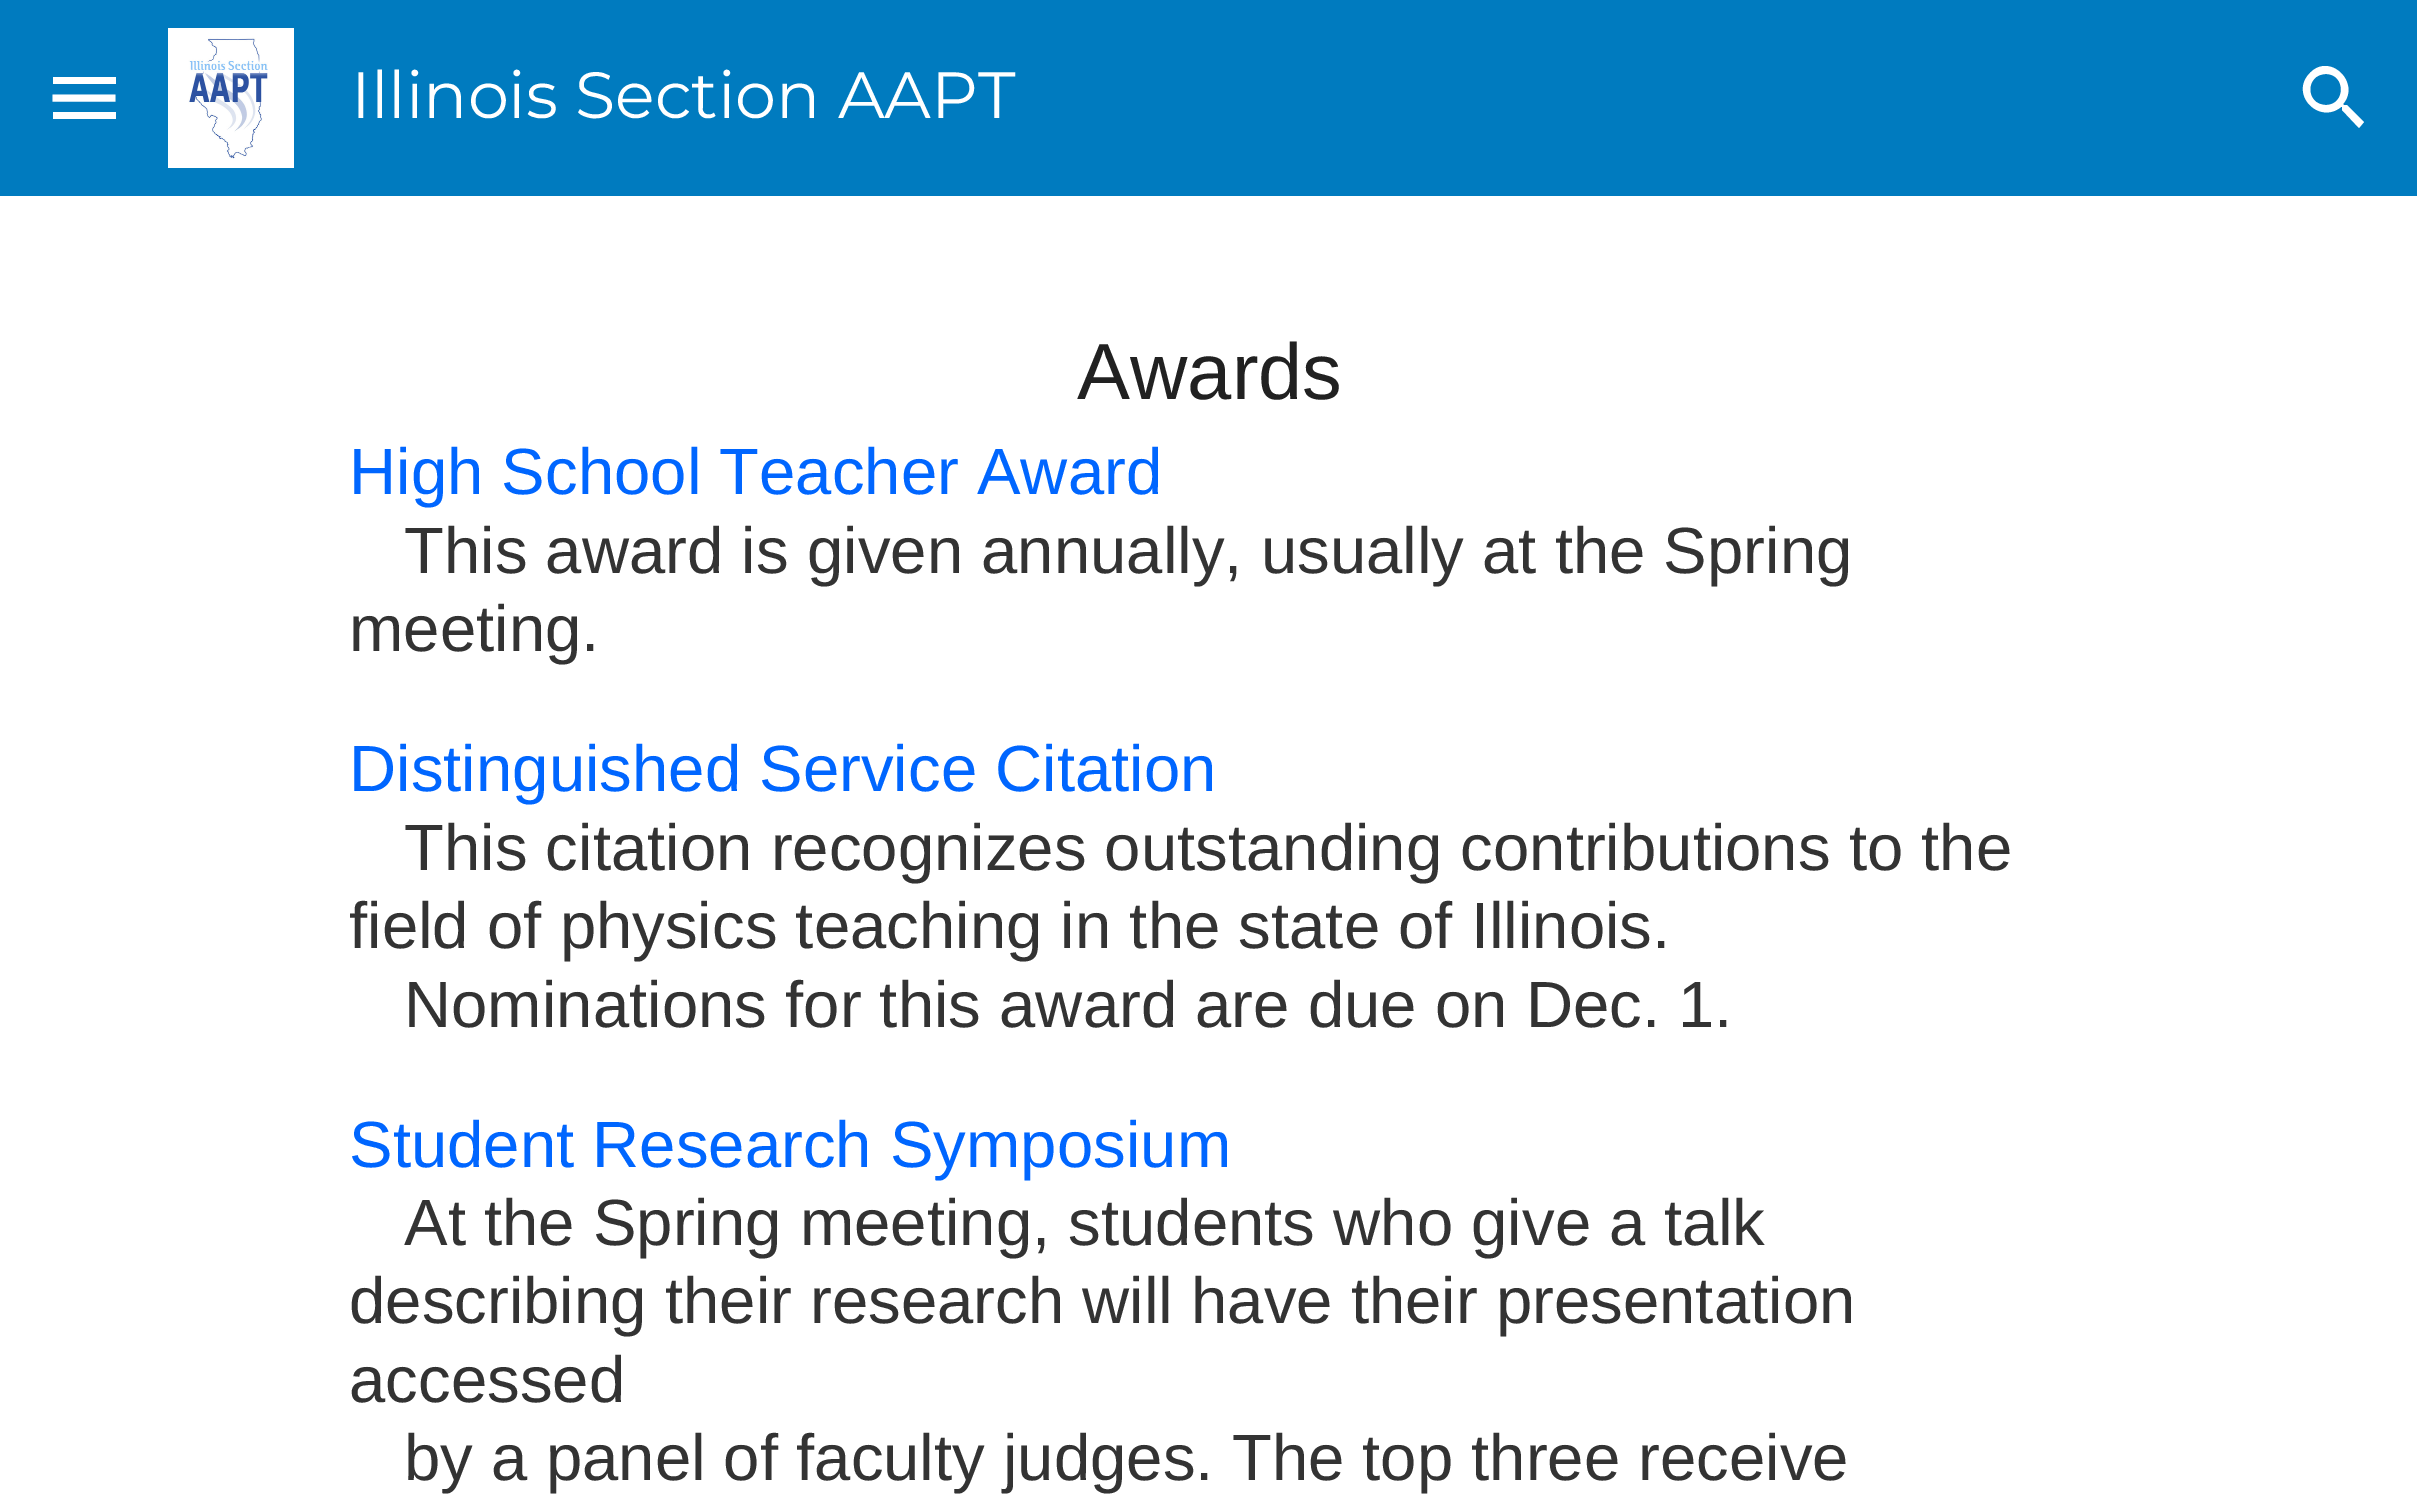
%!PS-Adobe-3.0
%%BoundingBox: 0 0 2417 1505
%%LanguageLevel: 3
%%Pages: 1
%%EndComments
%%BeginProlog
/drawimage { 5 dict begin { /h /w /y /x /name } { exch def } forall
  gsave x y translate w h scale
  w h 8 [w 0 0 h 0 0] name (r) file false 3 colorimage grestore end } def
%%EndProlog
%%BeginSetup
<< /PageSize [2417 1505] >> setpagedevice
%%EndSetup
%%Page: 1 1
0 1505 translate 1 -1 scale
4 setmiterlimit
1 setgray
0 0 2417 1505 rectfill
0 0.482 0.749 setrgbcolor
0 0 2417 196 rectfill
1 setgray
53 77 63 7 rectfill
7 setlinewidth
newpath 52.5 98 moveto 115.5 98 lineto stroke
53 112 63 7 rectfill
(images/1.raw) 168 28 126 140 drawimage
newpath 2347 105 moveto 2344 105 lineto 2343 104 lineto 2361 83 2330 52 2310 73 curveto 2289 94 2319 125 2341 107 curveto 2342 107 lineto 2342 110 lineto 2359 128 lineto 2364 122 lineto closepath 2326 105 moveto 2305 105 2305 74 2326 74 curveto 2346 74 2346 105 2326 105 curveto closepath fill
/Montserrat-Regular [65.3 0 0 -65.3 0 0] selectfont
351 118 moveto (Illinois Section AAPT) show
/LiberationSans-Regular [79.5 0 0 -79.5 0 0] selectfont
0.129 setgray
1077 399 moveto (Awards) show
/LiberationSans-Regular [65.3 0 0 -65.3 0 0] selectfont
0 0.4 1 setrgbcolor
349 494 moveto (High School Teacher Award) show
0.2 setgray
404 573 moveto (This award is given annually, usually at the Spring) show
349 651 moveto (meeting.) show
0 0.4 1 setrgbcolor
349 791 moveto (Distinguished Service Citation) show
0.2 setgray
404 870 moveto (This citation recognizes outstanding contributions to the) show
349 948 moveto (field of physics teaching in the state of Illinois.) show
404 1027 moveto (Nominations for this award are due on Dec. 1.) show
0 0.4 1 setrgbcolor
349 1167 moveto (Student Research Symposium) show
0.2 setgray
404 1245 moveto (At the Spring meeting, students who give a talk) show
349 1323 moveto (describing their research will have their presentation) show
349 1402 moveto (accessed) show
404 1480 moveto (by a panel of faculty judges. The top three receive) show
showpage
%%EOF
